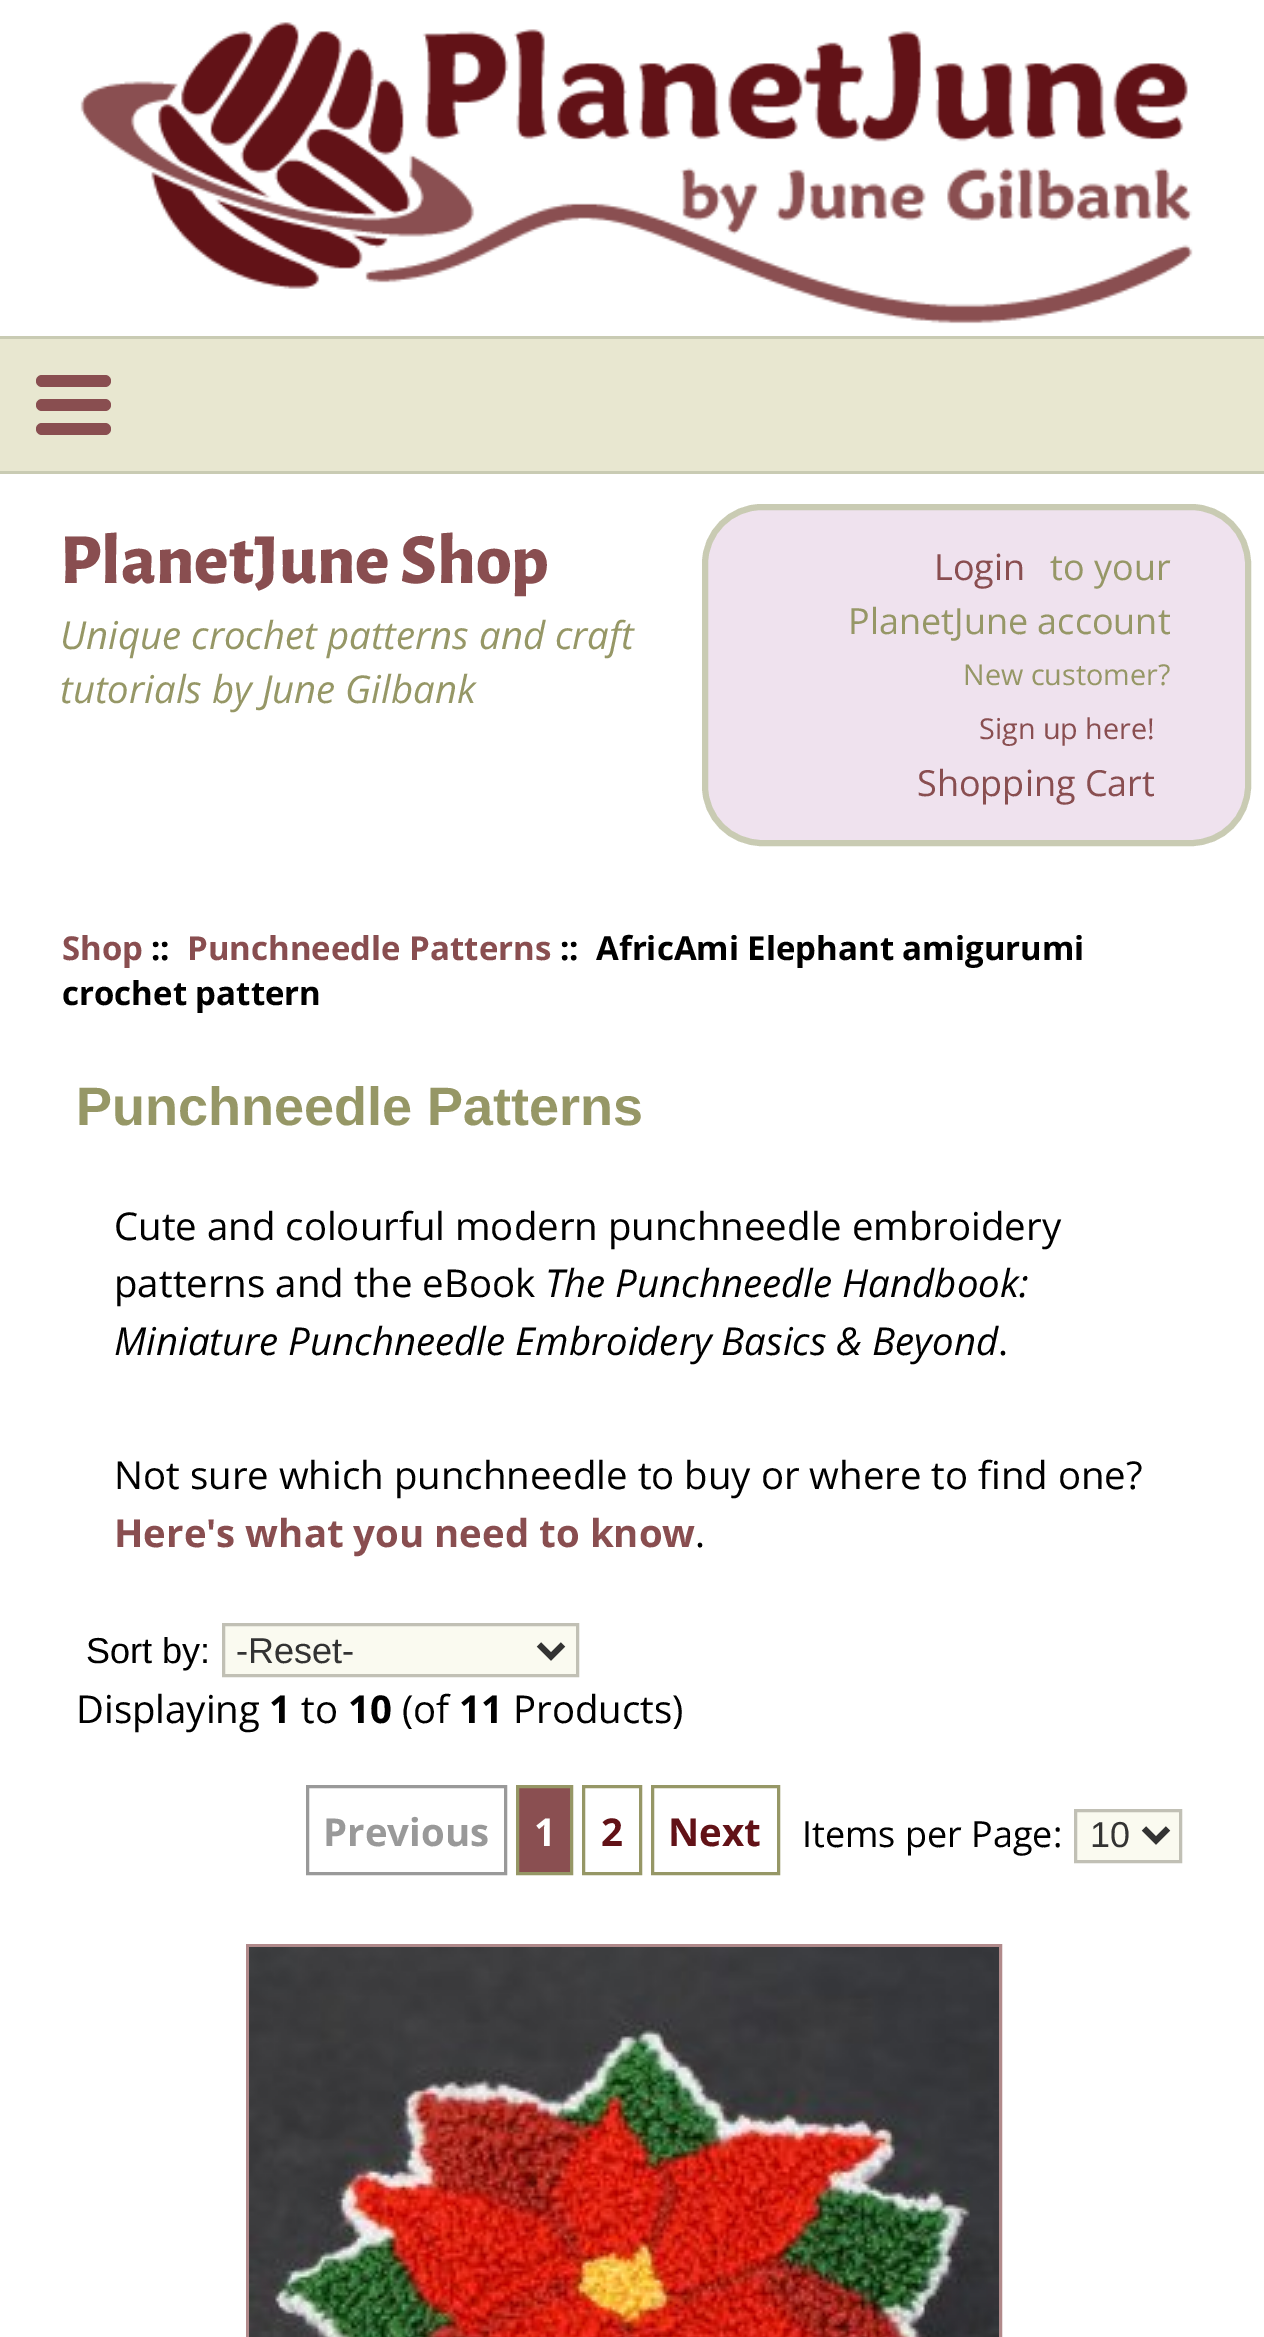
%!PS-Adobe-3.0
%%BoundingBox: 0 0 1264 2337
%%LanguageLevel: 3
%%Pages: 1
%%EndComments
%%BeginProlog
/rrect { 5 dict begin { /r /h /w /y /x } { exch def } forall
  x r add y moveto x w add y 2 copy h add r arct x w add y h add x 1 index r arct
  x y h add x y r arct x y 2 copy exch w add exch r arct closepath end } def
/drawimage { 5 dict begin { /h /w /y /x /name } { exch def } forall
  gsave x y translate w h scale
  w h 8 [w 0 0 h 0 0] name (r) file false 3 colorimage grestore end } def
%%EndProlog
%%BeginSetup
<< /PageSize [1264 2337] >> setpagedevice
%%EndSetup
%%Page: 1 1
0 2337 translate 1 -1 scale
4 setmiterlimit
1 setgray
0 0 1264 2337 rectfill
(images/1.raw) 80 22 1113 302 drawimage
0.91 0.906 0.816 setrgbcolor
0 339 1264 132 rectfill
0.788 0.796 0.702 setrgbcolor
0 336 1264 3 rectfill
0 471 1264 3 rectfill
0.537 0.306 0.314 setrgbcolor
36 423 75 12 6 rrect fill
36 399 75 12 6 rrect fill
36 375 75 12 6 rrect fill
0.937 0.886 0.933 setrgbcolor
705 507 543 336 57 rrect gsave fill grestore
0.788 0.796 0.702 setrgbcolor
6 setlinewidth
stroke
0.98 0.98 0.941 setrgbcolor
newpath 223.5 1624.5 moveto 577.5 1624.5 lineto 577.5 1675.5 lineto 223.5 1675.5 lineto closepath gsave fill grestore
0.757 0.753 0.71 setrgbcolor
3 setlinewidth
stroke
0.2 setgray
6 setlinewidth
newpath 539 1644.5 moveto 551 1656.5 lineto 563 1644.5 lineto stroke
0.6 setgray
3 setlinewidth
307.5 1786.5 198 87 rectstroke
0.541 0.31 0.318 setrgbcolor
newpath 517.5 1786.5 moveto 571.5 1786.5 lineto 571.5 1873.5 lineto 517.5 1873.5 lineto closepath gsave fill grestore
0.588 0.592 0.4 setrgbcolor
stroke
583.5 1786.5 57 87 rectstroke
652.5 1786.5 126 87 rectstroke
0.98 0.98 0.941 setrgbcolor
newpath 1075.5 1810.5 moveto 1180.5 1810.5 lineto 1180.5 1861.5 lineto 1075.5 1861.5 lineto closepath gsave fill grestore
0.757 0.753 0.71 setrgbcolor
stroke
0.2 setgray
6 setlinewidth
newpath 1144 1828.5 moveto 1156 1840.5 lineto 1168 1828.5 lineto stroke
0.694 0.541 0.545 setrgbcolor
3 setlinewidth
247.5 1945.5 753 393 rectstroke
(images/2.raw) 249 1947 750 390 drawimage
/AlegreyaSans-ExtraBold [72 0 0 -72 0 0] selectfont
0.537 0.306 0.314 setrgbcolor
60 583 moveto (PlanetJune Shop) show
/OpenSans-Italic [38.4 0 0 -38.4 0 0] selectfont
0.588 0.592 0.4 setrgbcolor
60 649 moveto (Unique crochet patterns and craft) show
60 703 moveto (tutorials by June Gilbank) show
/OpenSans-Regular [36 0 0 -36 0 0] selectfont
0.537 0.306 0.314 setrgbcolor
934 580 moveto (Login) show
0.588 0.592 0.4 setrgbcolor
1050 580 moveto (to your) show
848 634 moveto (PlanetJune account) show
/OpenSans-Regular [28.75 0 0 -28.75 0 0] selectfont
963 685 moveto (New customer?) show
0.537 0.306 0.314 setrgbcolor
979 739 moveto (Sign up here!) show
/OpenSans-Regular [36 0 0 -36 0 0] selectfont
917 796 moveto (Shopping Cart) show
/OpenSans-Bold [33 0 0 -33 0 0] selectfont
62 960 moveto (Shop) show
0 setgray
151 960 moveto (::) show
0.537 0.306 0.314 setrgbcolor
187 960 moveto (Punchneedle Patterns) show
0 setgray
560 960 moveto (::  AfricAmi Elephant amigurumi) show
62 1005 moveto (crochet pattern) show
/LiberationSans-Bold [54 0 0 -54 0 0] selectfont
0.588 0.592 0.4 setrgbcolor
76 1125 moveto (Punchneedle Patterns) show
/OpenSans-Regular [38.4 0 0 -38.4 0 0] selectfont
0 setgray
114 1240 moveto (Cute and colourful modern punchneedle embroidery) show
114 1297 moveto (patterns and the eBook) show
/OpenSans-Italic [38.4 0 0 -38.4 0 0] selectfont
545 1297 moveto (The Punchneedle Handbook:) show
114 1355 moveto (Miniature Punchneedle Embroidery Basics & Beyond) show
/OpenSans-Regular [38.4 0 0 -38.4 0 0] selectfont
998 1355 moveto (.) show
114 1489 moveto (Not sure which punchneedle to buy or where to find one?) show
/OpenSans-Bold [38.4 0 0 -38.4 0 0] selectfont
0.537 0.306 0.314 setrgbcolor
114 1547 moveto (Here's what you need to know) show
/OpenSans-Regular [38.4 0 0 -38.4 0 0] selectfont
0 setgray
695 1547 moveto (.) show
/LiberationSans-Regular [36 0 0 -36 0 0] selectfont
86 1663 moveto (Sort by:) show
0.2 setgray
236 1663 moveto (-Reset-) show
/OpenSans-Regular [38.4 0 0 -38.4 0 0] selectfont
0 setgray
76 1723 moveto (Displaying) show
/OpenSans-Bold [38.4 0 0 -38.4 0 0] selectfont
269 1723 moveto (1) show
/OpenSans-Regular [38.4 0 0 -38.4 0 0] selectfont
301 1723 moveto (to) show
/OpenSans-Bold [38.4 0 0 -38.4 0 0] selectfont
348 1723 moveto (10) show
/OpenSans-Regular [38.4 0 0 -38.4 0 0] selectfont
402 1723 moveto (\(of) show
/OpenSans-Bold [38.4 0 0 -38.4 0 0] selectfont
459 1723 moveto (11) show
/OpenSans-Regular [38.4 0 0 -38.4 0 0] selectfont
513 1723 moveto (Products\)) show
/OpenSans-Bold [38.4 0 0 -38.4 0 0] selectfont
0.6 setgray
323 1846 moveto (Previous) show
1 setgray
534 1846 moveto (1) show
0.384 0.071 0.09 setrgbcolor
601 1846 moveto (2) show
668 1846 moveto (Next) show
/OpenSans-Regular [36 0 0 -36 0 0] selectfont
0 setgray
802 1847 moveto (Items per Page:) show
/LiberationSans-Regular [36 0 0 -36 0 0] selectfont
0.2 setgray
1090 1847 moveto (10) show
showpage
%%EOF
